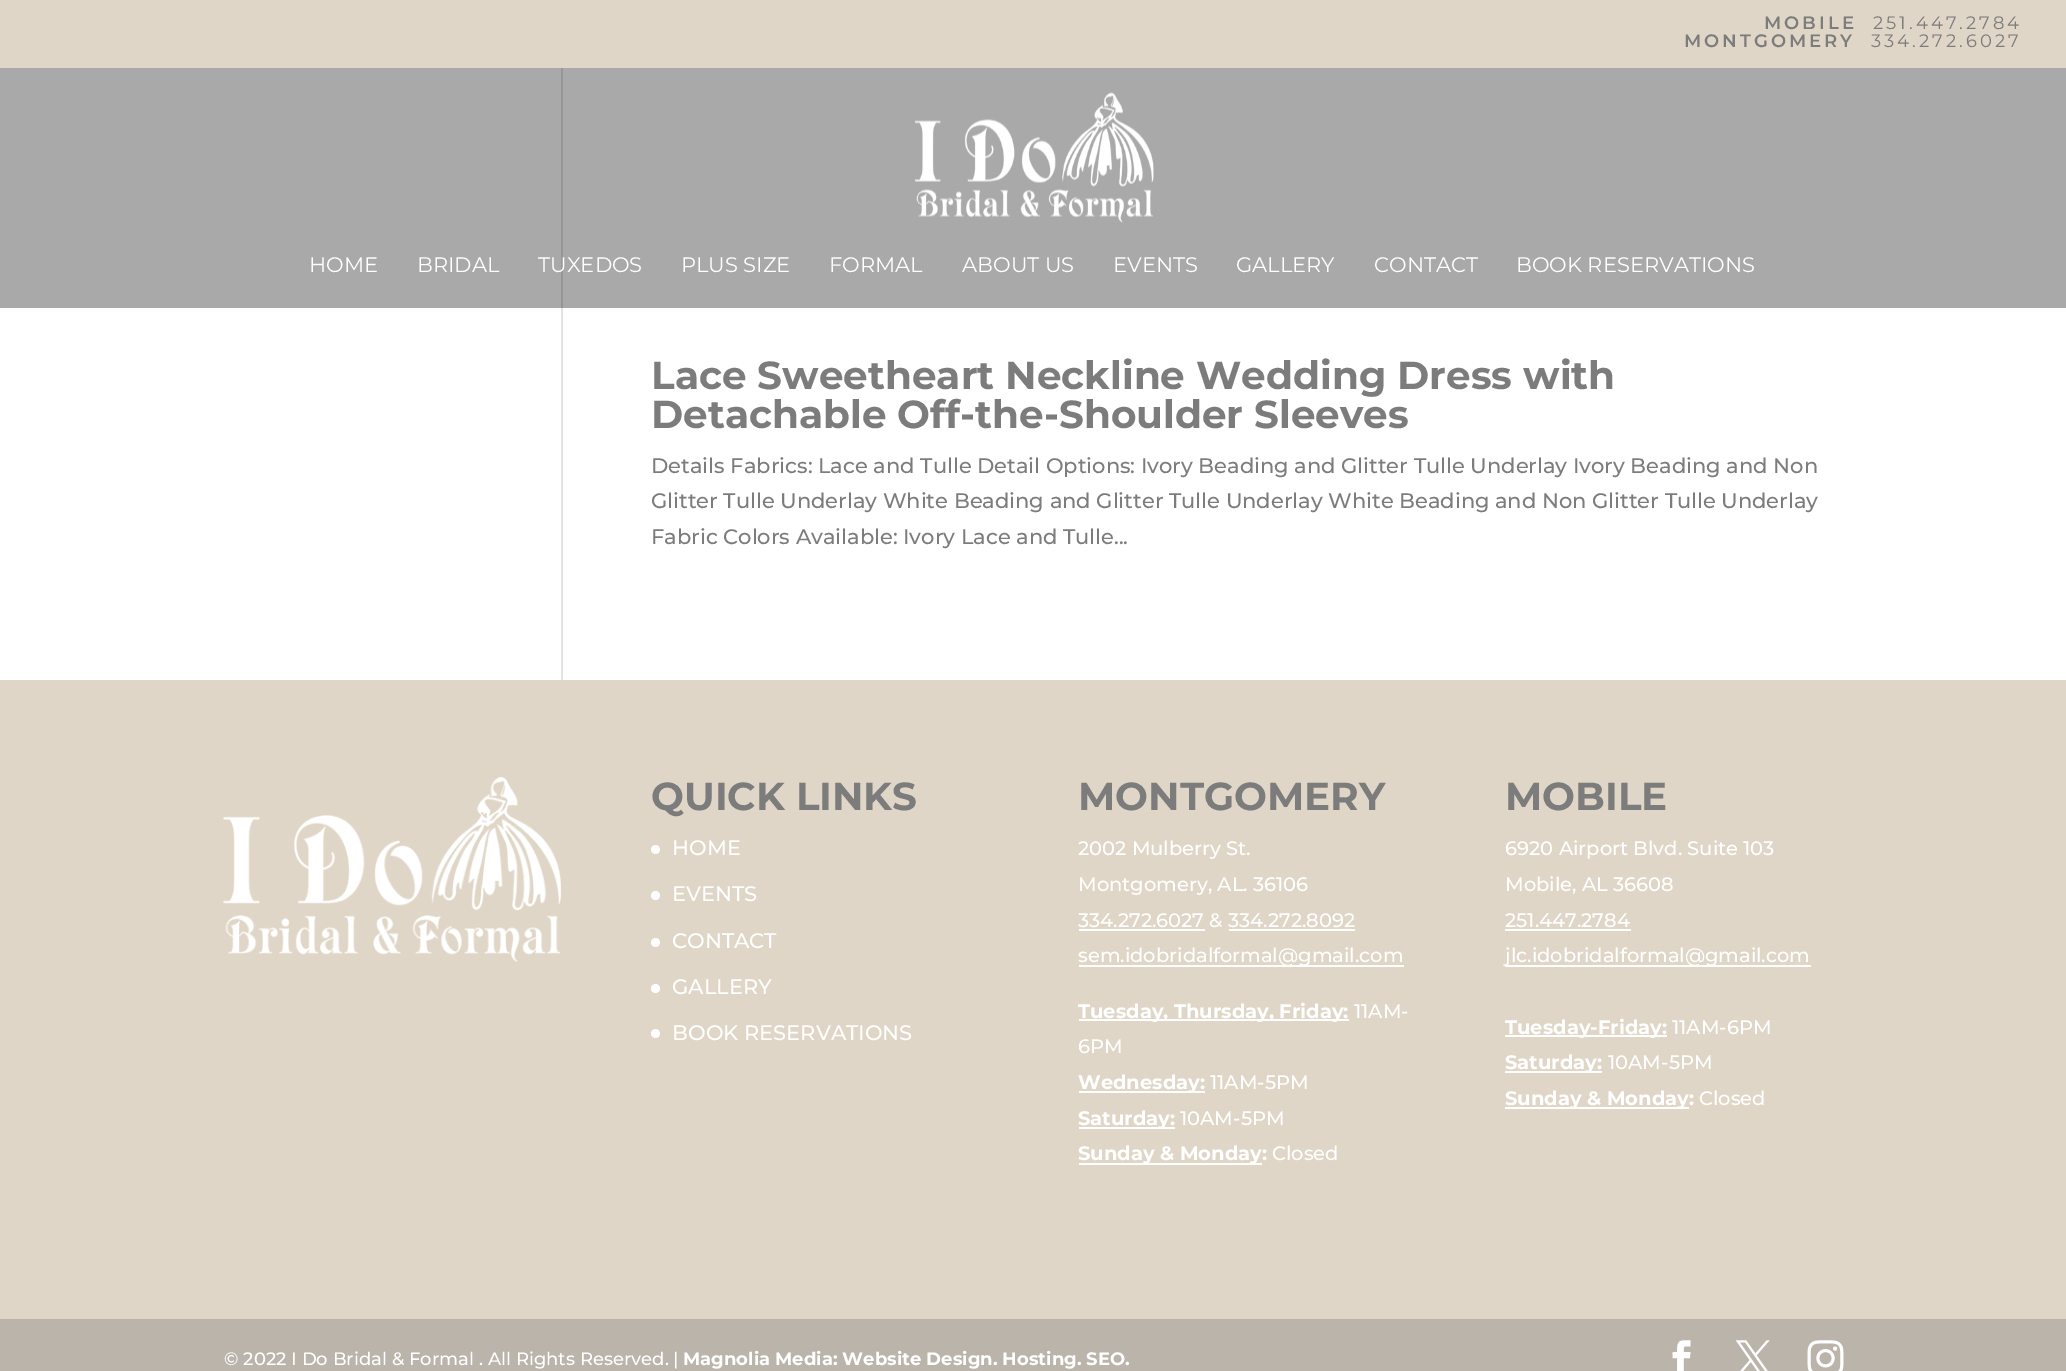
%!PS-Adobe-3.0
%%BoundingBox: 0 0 2066 1371
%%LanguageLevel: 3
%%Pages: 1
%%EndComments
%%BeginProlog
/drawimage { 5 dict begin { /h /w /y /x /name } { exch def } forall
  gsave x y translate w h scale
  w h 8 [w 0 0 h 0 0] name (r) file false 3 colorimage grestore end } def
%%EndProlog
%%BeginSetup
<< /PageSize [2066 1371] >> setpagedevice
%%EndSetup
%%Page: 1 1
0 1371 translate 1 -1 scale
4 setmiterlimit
1 setgray
0 0 2066 1371 rectfill
0.663 setgray
0 68 2066 240 rectfill
0.878 0.839 0.78 setrgbcolor
0 0 2066 68 rectfill
(images/1.raw) 915 92 239 131 drawimage
0.886 setgray
561 308 2 372 rectfill
0.588 setgray
561 68 2 240 rectfill
0.878 0.839 0.78 setrgbcolor
0 680 2066 639 rectfill
(images/2.raw) 223 777 338 185 drawimage
1 setgray
newpath 655.5 849.5 4.5 0 360 arc closepath fill
newpath 655.5 895.5 4.5 0 360 arc closepath fill
newpath 655.5 942.5 4.5 0 360 arc closepath fill
newpath 655.5 988.5 4.5 0 360 arc closepath fill
newpath 655.5 1033.5 4.5 0 360 arc closepath fill
1079 929 126 2 rectfill
1229 929 126 2 rectfill
1079 965 325 2 rectfill
1079 1019 270 2 rectfill
1079 1091 126 2 rectfill
1079 1127 96 2 rectfill
1079 1163 183 2 rectfill
1505 929 126 2 rectfill
1505 965 306 2 rectfill
1505 1035 162 2 rectfill
1505 1071 97 2 rectfill
1505 1107 184 2 rectfill
0.729 0.706 0.671 setrgbcolor
0 1319 2066 52 rectfill
(images/3.raw) 1672 1340 19 31 drawimage
(images/4.raw) 1735 1340 35 31 drawimage
(images/5.raw) 1807 1340 37 31 drawimage
/Montserrat-SemiBold [18 0 0 -18 0 0] selectfont
0.486 setgray
1764 29 moveto 3 0 (MOBILE) ashow
/Montserrat-Regular [18 0 0 -18 0 0] selectfont
1873 29 moveto 3 0 (251.447.2784) ashow
/Montserrat-SemiBold [18 0 0 -18 0 0] selectfont
1684 47 moveto 3 0 (MONTGOMERY) ashow
/Montserrat-Regular [18 0 0 -18 0 0] selectfont
1871 47 moveto 3 0 (334.272.6027) ashow
/Montserrat-Regular [21 0 0 -21 0 0] selectfont
1 setgray
309 272 moveto (HOME) show
417 272 moveto (BRIDAL) show
538 272 moveto (TUXEDOS) show
681 272 moveto (PLUS SIZE) show
829 272 moveto (FORMAL) show
962 272 moveto (ABOUT US) show
1113 272 moveto (EVENTS) show
1236 272 moveto (GALLERY) show
1374 272 moveto (CONTACT) show
1516 272 moveto (BOOK RESERVATIONS) show
/Montserrat-Bold [39 0 0 -39 0 0] selectfont
0.486 setgray
651 389 moveto (Lace Sweetheart Neckline Wedding Dress with) show
651 428 moveto (Detachable Off-the-Shoulder Sleeves) show
/Montserrat-Medium [21 0 0 -21 0 0] selectfont
651 473 moveto (Details Fabrics: Lace and Tulle Detail Options: Ivory Beading and Glitter Tulle Underlay Ivory Beading and Non) show
651 508 moveto (Glitter Tulle Underlay White Beading and Glitter Tulle Underlay White Beading and Non Glitter Tulle Underlay) show
651 544 moveto (Fabric Colors Available: Ivory Lace and Tulle...) show
/Montserrat-Bold [39 0 0 -39 0 0] selectfont
651 810 moveto (QUICK LINKS) show
/Montserrat-Medium [21 0 0 -21 0 0] selectfont
1 setgray
672 855 moveto (HOME) show
672 901 moveto (EVENTS) show
672 948 moveto (CONTACT) show
672 994 moveto (GALLERY) show
672 1040 moveto (BOOK RESERVATIONS) show
/Montserrat-Bold [39 0 0 -39 0 0] selectfont
0.486 setgray
1078 810 moveto (MONTGOMERY) show
/Montserrat-Medium [19.5 0 0 -19.5 0 0] selectfont
1 setgray
1078 855 moveto (2002 Mulberry St.) show
1078 891 moveto (Montgomery, AL. 36106) show
1078 927 moveto (334.272.6027 & 334.272.8092) show
1078 962 moveto (sem.idobridalformal@gmail.com) show
/Montserrat-Bold [19.5 0 0 -19.5 0 0] selectfont
1078 1018 moveto (Tuesday, Thursday, Friday:) show
/Montserrat-Medium [19.5 0 0 -19.5 0 0] selectfont
1354 1018 moveto (11AM-) show
1078 1053 moveto (6PM) show
/Montserrat-Bold [19.5 0 0 -19.5 0 0] selectfont
1078 1089 moveto (Wednesday:) show
/Montserrat-Medium [19.5 0 0 -19.5 0 0] selectfont
1210 1089 moveto (11AM-5PM) show
/Montserrat-Bold [19.5 0 0 -19.5 0 0] selectfont
1078 1125 moveto (Saturday:) show
/Montserrat-Medium [19.5 0 0 -19.5 0 0] selectfont
1180 1125 moveto (10AM-5PM) show
/Montserrat-Bold [19.5 0 0 -19.5 0 0] selectfont
1078 1160 moveto (Sunday & Monday:) show
/Montserrat-Medium [19.5 0 0 -19.5 0 0] selectfont
1272 1160 moveto (Closed) show
/Montserrat-Bold [39 0 0 -39 0 0] selectfont
0.486 setgray
1505 810 moveto (MOBILE) show
/Montserrat-Medium [19.5 0 0 -19.5 0 0] selectfont
1 setgray
1505 855 moveto (6920 Airport Blvd. Suite 103) show
1505 891 moveto (Mobile, AL 36608) show
1505 927 moveto (251.447.2784) show
1505 962 moveto (jlc.idobridalformal@gmail.com) show
/Montserrat-Bold [19.5 0 0 -19.5 0 0] selectfont
1505 1034 moveto (Tuesday-Friday:) show
/Montserrat-Medium [19.5 0 0 -19.5 0 0] selectfont
1672 1034 moveto (11AM-6PM) show
/Montserrat-Bold [19.5 0 0 -19.5 0 0] selectfont
1505 1069 moveto (Saturday:) show
/Montserrat-Medium [19.5 0 0 -19.5 0 0] selectfont
1608 1069 moveto (10AM-5PM) show
/Montserrat-Bold [19.5 0 0 -19.5 0 0] selectfont
1505 1105 moveto (Sunday & Monday:) show
/Montserrat-Medium [19.5 0 0 -19.5 0 0] selectfont
1699 1105 moveto (Closed) show
/Montserrat-Medium [18 0 0 -18 0 0] selectfont
224 1365 moveto (© 2022 I Do Bridal & Formal . All Rights Reserved. |) show
/Montserrat-Bold [18 0 0 -18 0 0] selectfont
683 1365 moveto (Magnolia Media: Website Design. Hosting. SEO.) show
showpage
%%EOF
